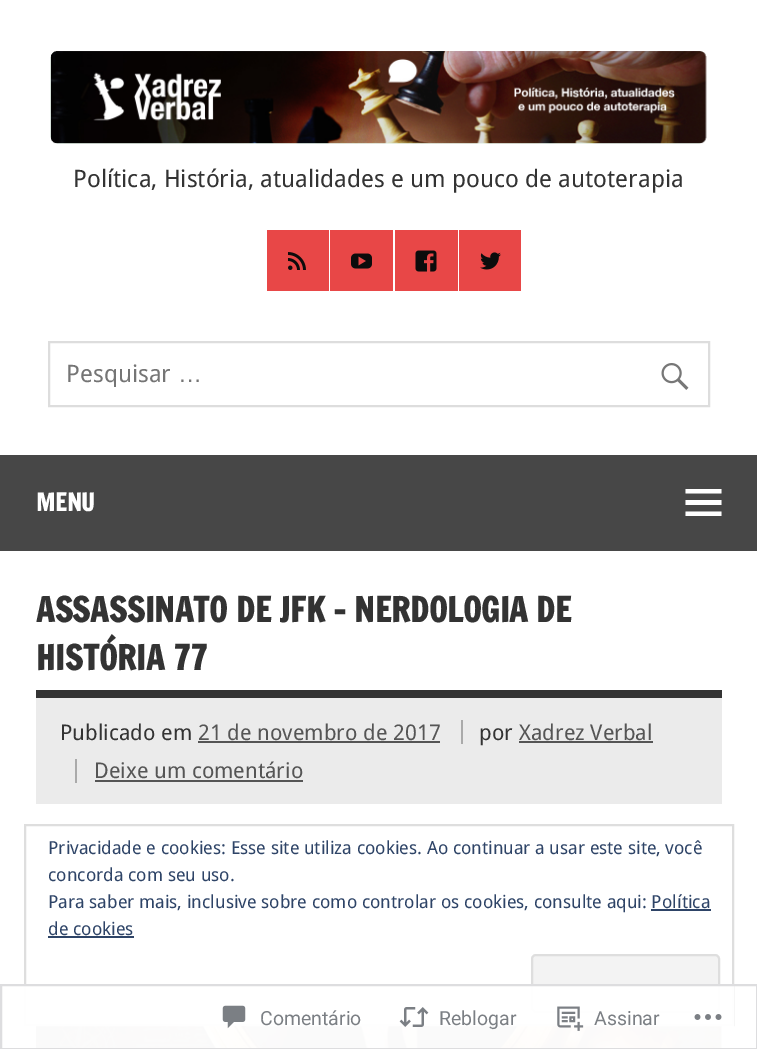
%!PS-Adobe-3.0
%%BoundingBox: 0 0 757 1049
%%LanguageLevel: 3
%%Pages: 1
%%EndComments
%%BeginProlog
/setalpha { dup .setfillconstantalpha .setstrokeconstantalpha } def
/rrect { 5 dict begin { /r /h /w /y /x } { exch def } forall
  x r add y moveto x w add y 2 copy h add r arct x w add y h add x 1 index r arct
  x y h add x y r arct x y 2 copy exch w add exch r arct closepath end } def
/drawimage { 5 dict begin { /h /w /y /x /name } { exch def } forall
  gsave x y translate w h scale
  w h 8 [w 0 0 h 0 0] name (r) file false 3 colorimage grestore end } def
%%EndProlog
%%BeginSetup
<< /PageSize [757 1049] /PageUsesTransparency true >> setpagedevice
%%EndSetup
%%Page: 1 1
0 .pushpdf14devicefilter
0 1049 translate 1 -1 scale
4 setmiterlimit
1 setgray
0 0 757 1049 rectfill
(images/1.raw) 50 51 657 93 drawimage
0.91 0.278 0.278 setrgbcolor
267 230 62 61 rectfill
(images/2.raw) 288 252 18 18 drawimage
330 230 63 61 rectfill
(images/3.raw) 351 253 21 16 drawimage
395 230 63 61 rectfill
(images/4.raw) 415 250 22 22 drawimage
459 230 62 61 rectfill
(images/5.raw) 480 252 21 18 drawimage
0.867 setgray
2 setlinewidth
49 342 660 64 rectstroke
(images/6.raw) 661 363 28 27 drawimage
0.278 setgray
0 455 757 96 rectfill
1 setgray
newpath 685.5 516 moveto 685.5 511.5 lineto 721.5 511.5 lineto 721.5 516 lineto closepath 685.5 489 moveto 721.5 489 lineto 721.5 493.5 lineto 685.5 493.5 lineto closepath 685.5 505 moveto 685.5 500 lineto 721.5 500 lineto 721.5 505 lineto closepath fill
0.2 setgray
36 690 686 8 rectfill
0.922 setgray
36 698 686 106 rectfill
0.333 setgray
198 741 242 2 rectfill
0.667 setgray
461 720 2 24 rectfill
0.333 setgray
519 741 134 2 rectfill
0.667 setgray
75 759 2 24 rectfill
0.333 setgray
95 780 208 2 rectfill
(images/7.raw) 36 1026 686 23 drawimage
0.871 setgray
25 825 708 200 rectstroke
0.18 0.267 0.404 setrgbcolor
651 909 60 2 rectfill
48 936 86 2 rectfill
0.953 setgray
532 955 187 57 4 rrect gsave fill grestore
0.871 setgray
stroke
0.98 setalpha
1 setgray
24 984 710 65 rectfill
0.863 0.863 0.871 setrgbcolor
1 985 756 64 rectstroke
1 setalpha
(images/8.raw) 222 1005 24 24 drawimage
(images/9.raw) 399 1007 30 20 drawimage
(images/10.raw) 557 1006 27 25 drawimage
(images/11.raw) 694 1014 28 6 drawimage
/DroidSans-Regular [24 0 0 -24 0 0] selectfont
0.2 setgray
73 187 moveto (Política, História, atualidades e um pouco de autoterapia) show
gsave
66 359 569 28 rectclip
0.459 setgray
66 382 moveto (Pesquisar) show
grestore
/LiberationSans-Regular [24 0 0 -24 0 0] selectfont
0.459 setgray
178 382 moveto (…) show
/FrancoisOne-Bold [24 0 0 -24 0 0] selectfont
1 setgray
36 511 moveto (MENU) show
/FrancoisOne-Bold [33.6 0 0 -33.6 0 0] selectfont
0.2 setgray
36 622 moveto (ASSASSINATO DE JFK – NERDOLOGIA DE) show
36 670 moveto (HISTÓRIA 77) show
/DroidSans-Regular [21.6 0 0 -21.6 0 0] selectfont
60 740 moveto (Publicado em) show
0.333 setgray
198 740 moveto (21 de novembro de 2017) show
0.2 setgray
479 740 moveto (por) show
0.333 setgray
519 740 moveto (Xadrez Verbal) show
94 778 moveto (Deixe um comentário) show
/DroidSans-Regular [18 0 0 -18 0 0] selectfont
0.18 0.267 0.404 setrgbcolor
48 854 moveto (Privacidade e cookies: Esse site utiliza cookies. Ao continuar a usar este site, você) show
48 881 moveto (concorda com seu uso.) show
48 908 moveto (Para saber mais, inclusive sobre como controlar os cookies, consulte aqui: Política) show
48 935 moveto (de cookies) show
/Roboto-Regular [19.5 0 0 -19.5 0 0] selectfont
0.482 0.498 0.518 setrgbcolor
260 1025 moveto (Comentário) show
439 1025 moveto (Reblogar) show
594 1025 moveto (Assinar) show
.poppdf14devicefilter showpage
%%EOF
